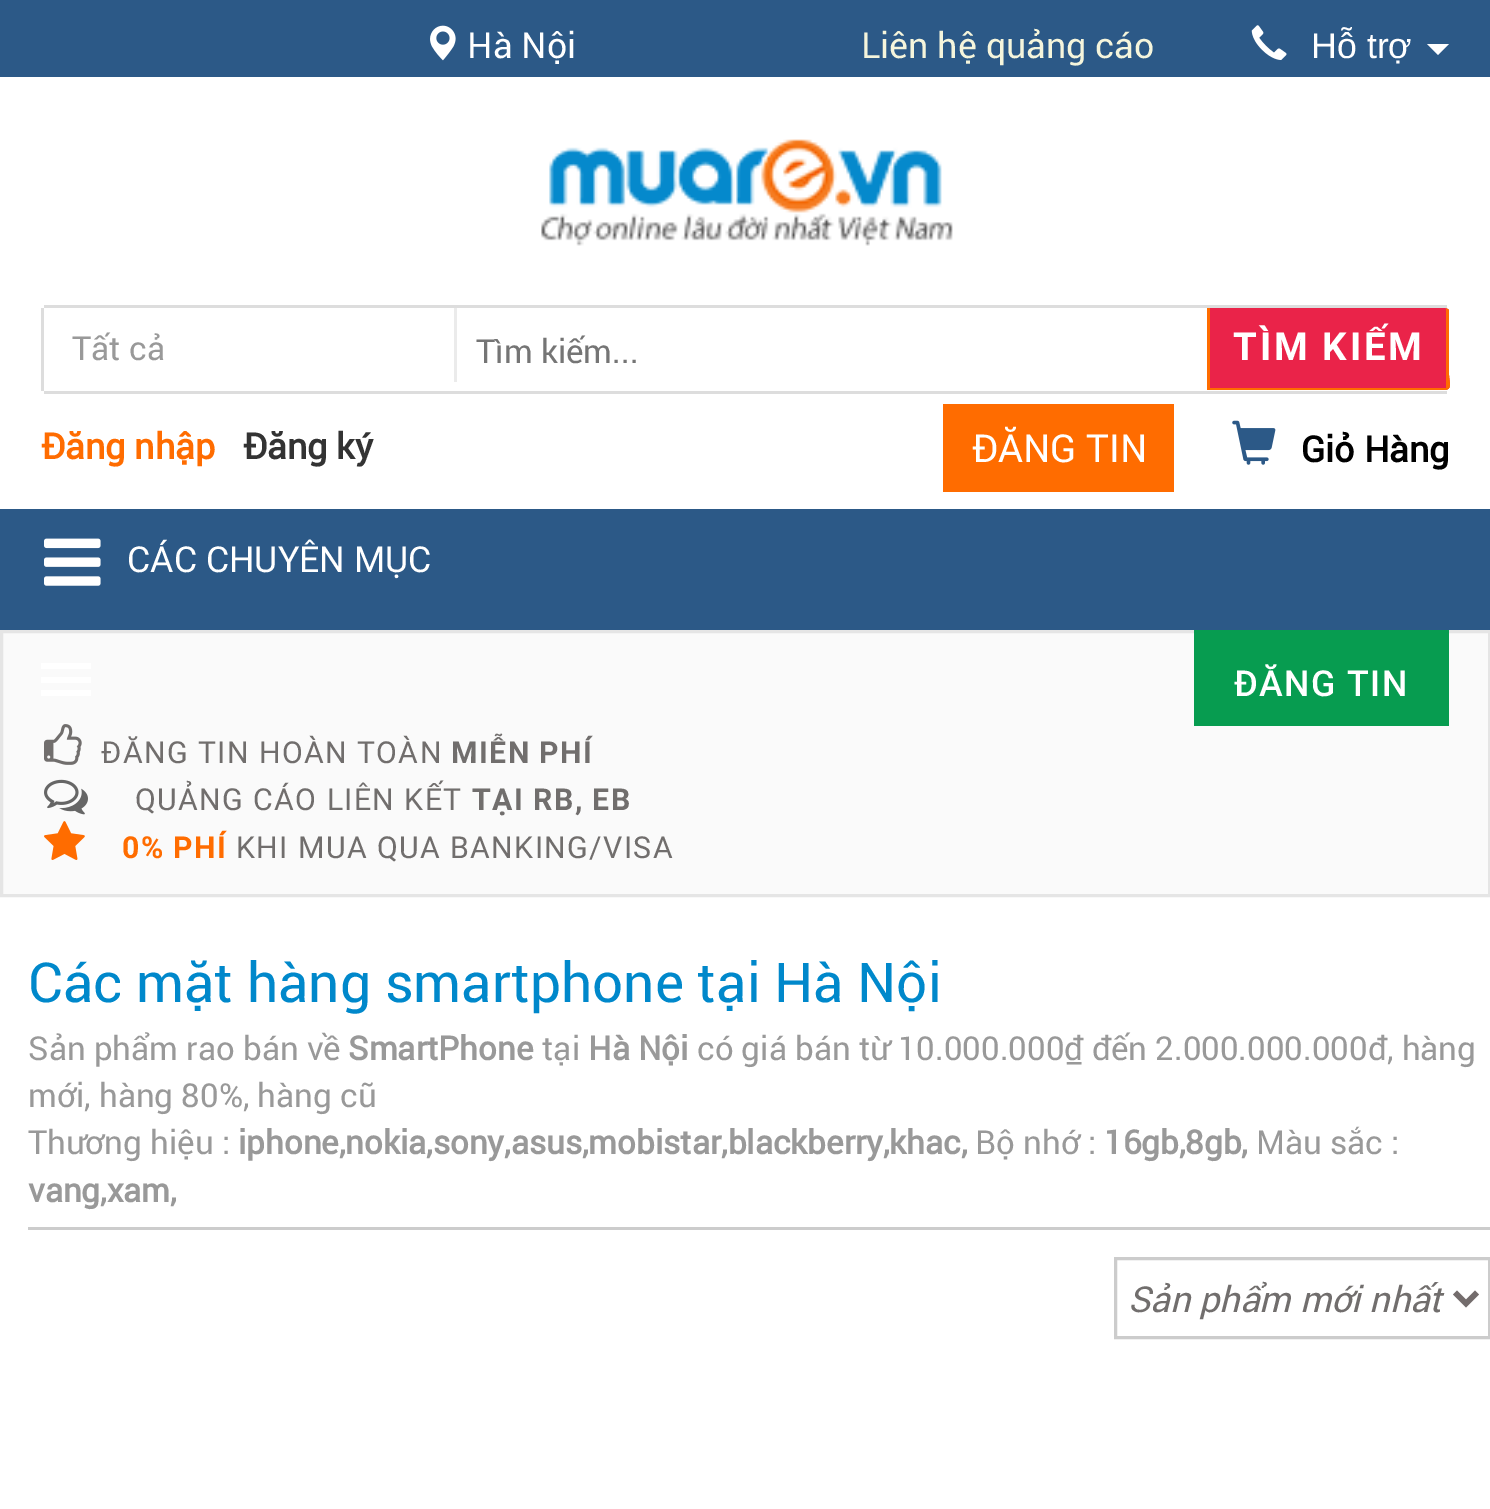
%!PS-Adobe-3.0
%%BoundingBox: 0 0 1490 1509
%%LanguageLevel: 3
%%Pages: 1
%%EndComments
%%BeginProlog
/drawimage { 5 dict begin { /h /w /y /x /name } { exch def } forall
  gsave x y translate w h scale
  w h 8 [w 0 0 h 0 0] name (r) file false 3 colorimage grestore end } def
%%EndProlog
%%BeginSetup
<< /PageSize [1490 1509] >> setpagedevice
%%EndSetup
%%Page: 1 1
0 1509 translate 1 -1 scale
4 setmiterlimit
1 setgray
0 0 1490 1509 rectfill
0.173 0.349 0.529 setrgbcolor
0 0 1490 77 rectfill
(images/1.raw) 430 25 26 36 drawimage
(images/2.raw) 1251 25 36 35 drawimage
1 setgray
newpath 1427 44 moveto 1449 44 lineto 1438 55 lineto closepath fill
(images/3.raw) 541 139 412 107 drawimage
0.867 setgray
44 305 1403 3 rectfill
44 391 1403 3 rectfill
41 308 3 83 rectfill
0.922 setgray
454 308 3 74 rectfill
0.918 0.137 0.286 setrgbcolor
newpath 1207 390 moveto 1207 308 lineto 1444 308 lineto 1446 308 1448 309 1449 310 curveto 1449 375 lineto 1449 382 1453 390 1444 390 curveto closepath fill
1 0.424 0 setrgbcolor
newpath 1210 308 moveto 1210 388 lineto 1446 388 lineto 1446 308 lineto 1449 310 lineto 1449 375 lineto 1449 382 1453 390 1444 390 curveto 1207 390 lineto 1207 308 lineto closepath fill
943 404 231 88 rectfill
(images/4.raw) 1232 420 44 45 drawimage
0.173 0.349 0.529 setrgbcolor
0 509 1490 121 rectfill
(images/5.raw) 44 538 57 48 drawimage
0.98 setgray
newpath 1.5 631.5 moveto 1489.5 631.5 lineto 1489.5 895.5 lineto 1.5 895.5 lineto closepath gsave fill grestore
0.898 setgray
3 setlinewidth
stroke
1 setgray
41 663 50 6 rectfill
41 677 50 6 rectfill
41 690 50 6 rectfill
0.027 0.612 0.314 setrgbcolor
1194 630 255 96 rectfill
(images/6.raw) 44 724 38 41 drawimage
(images/7.raw) 44 779 44 36 drawimage
(images/8.raw) 44 821 41 39 drawimage
0.8 setgray
28 1227 1462 3 rectfill
1115.5 1258.5 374 79 rectstroke
0.451 0.424 0.424 setrgbcolor
5.5 setlinewidth
newpath 1455 1292.5 moveto 1466 1303.5 lineto 1477 1292.5 lineto stroke
/Roboto-Regular [35.75 0 0 -35.75 0 0] selectfont
1 setgray
467 58 moveto (Hà Nội) show
0.961 0.961 0.863 setrgbcolor
861 58 moveto (Liên hệ quảng cáo) show
/LiberationSans-Regular [35.75 0 0 -35.75 0 0] selectfont
1 setgray
1311 58 moveto (Hỗ trợ) show
/Roboto-Regular [33 0 0 -33 0 0] selectfont
0.6 setgray
72 360 moveto (Tất cả) show
0.459 setgray
476 363 moveto (Tìm kiếm...) show
/Roboto-Bold [38.5 0 0 -38.5 0 0] selectfont
1 setgray
1233 360 moveto 2.75 0 (TÌM KIẾM) ashow
/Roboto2-Bold [35.75 0 0 -35.75 0 0] selectfont
1 0.424 0 setrgbcolor
41 459 moveto (Đăng nhập) show
0.2 setgray
243 459 moveto (Đăng ký) show
/Roboto-Regular [38.5 0 0 -38.5 0 0] selectfont
1 setgray
972 462 moveto (ĐĂNG TIN) show
/Roboto2-Bold [35.75 0 0 -35.75 0 0] selectfont
0 setgray
1301 462 moveto (Giỏ Hàng) show
/Roboto2-Regular [35.75 0 0 -35.75 0 0] selectfont
1 setgray
127 572 moveto (CÁC CHUYÊN MỤC) show
/Roboto-Medium [35.75 0 0 -35.75 0 0] selectfont
1234 696 moveto 1.4 0 (ĐĂNG TIN) ashow
/Roboto2-Regular [30.25 0 0 -30.25 0 0] selectfont
0.443 0.431 0.427 setrgbcolor
101 763 moveto 1.4 0 (ĐĂNG TIN HOÀN TOÀN) ashow
/Roboto-Bold [30.25 0 0 -30.25 0 0] selectfont
451 763 moveto 1.4 0 (MIỄN PHÍ) ashow
/Roboto2-Regular [30.25 0 0 -30.25 0 0] selectfont
135 810 moveto 1.4 0 (QUẢNG CÁO LIÊN KẾT) ashow
/Roboto-Bold [30.25 0 0 -30.25 0 0] selectfont
472 810 moveto 1.4 0 (TẠI RB, EB) ashow
1 0.424 0 setrgbcolor
122 858 moveto 1.4 0 (0% PHÍ) ashow
/Roboto2-Regular [30.25 0 0 -30.25 0 0] selectfont
0.443 0.431 0.427 setrgbcolor
236 858 moveto 1.4 0 (KHI MUA QUA BANKING/VISA) ashow
/Roboto-Regular [55 0 0 -55 0 0] selectfont
0 0.533 0.796 setrgbcolor
28 1002 moveto (Các mặt hàng smartphone tại Hà Nội) show
/Roboto-Regular [33 0 0 -33 0 0] selectfont
0.6 setgray
28 1060 moveto (Sản phẩm rao bán về) show
/Roboto2-Bold [33 0 0 -33 0 0] selectfont
348 1060 moveto (SmartPhone) show
/Roboto-Regular [33 0 0 -33 0 0] selectfont
542 1060 moveto (tại) show
/Roboto2-Bold [33 0 0 -33 0 0] selectfont
588 1060 moveto (Hà Nội) show
/Roboto-Regular [33 0 0 -33 0 0] selectfont
697 1060 moveto (có giá bán từ 10.000.000₫ đến 2.000.000.000đ, hàng) show
28 1107 moveto (mới, hàng 80%, hàng cũ) show
28 1154 moveto (Thương hiệu :) show
/Roboto2-Bold [33 0 0 -33 0 0] selectfont
238 1154 moveto (iphone,nokia,sony,asus,mobistar,blackberry,khac,) show
/Roboto-Regular [33 0 0 -33 0 0] selectfont
975 1154 moveto (Bộ nhớ :) show
/Roboto2-Bold [33 0 0 -33 0 0] selectfont
1104 1154 moveto (16gb,8gb,) show
/Roboto-Regular [33 0 0 -33 0 0] selectfont
1256 1154 moveto (Màu sắc :) show
/Roboto2-Bold [33 0 0 -33 0 0] selectfont
28 1202 moveto (vang,xam,) show
/Roboto-Italic [35.75 0 0 -35.75 0 0] selectfont
0.443 0.431 0.427 setrgbcolor
1128 1312 moveto (Sản phẩm mới nhất) show
showpage
%%EOF
